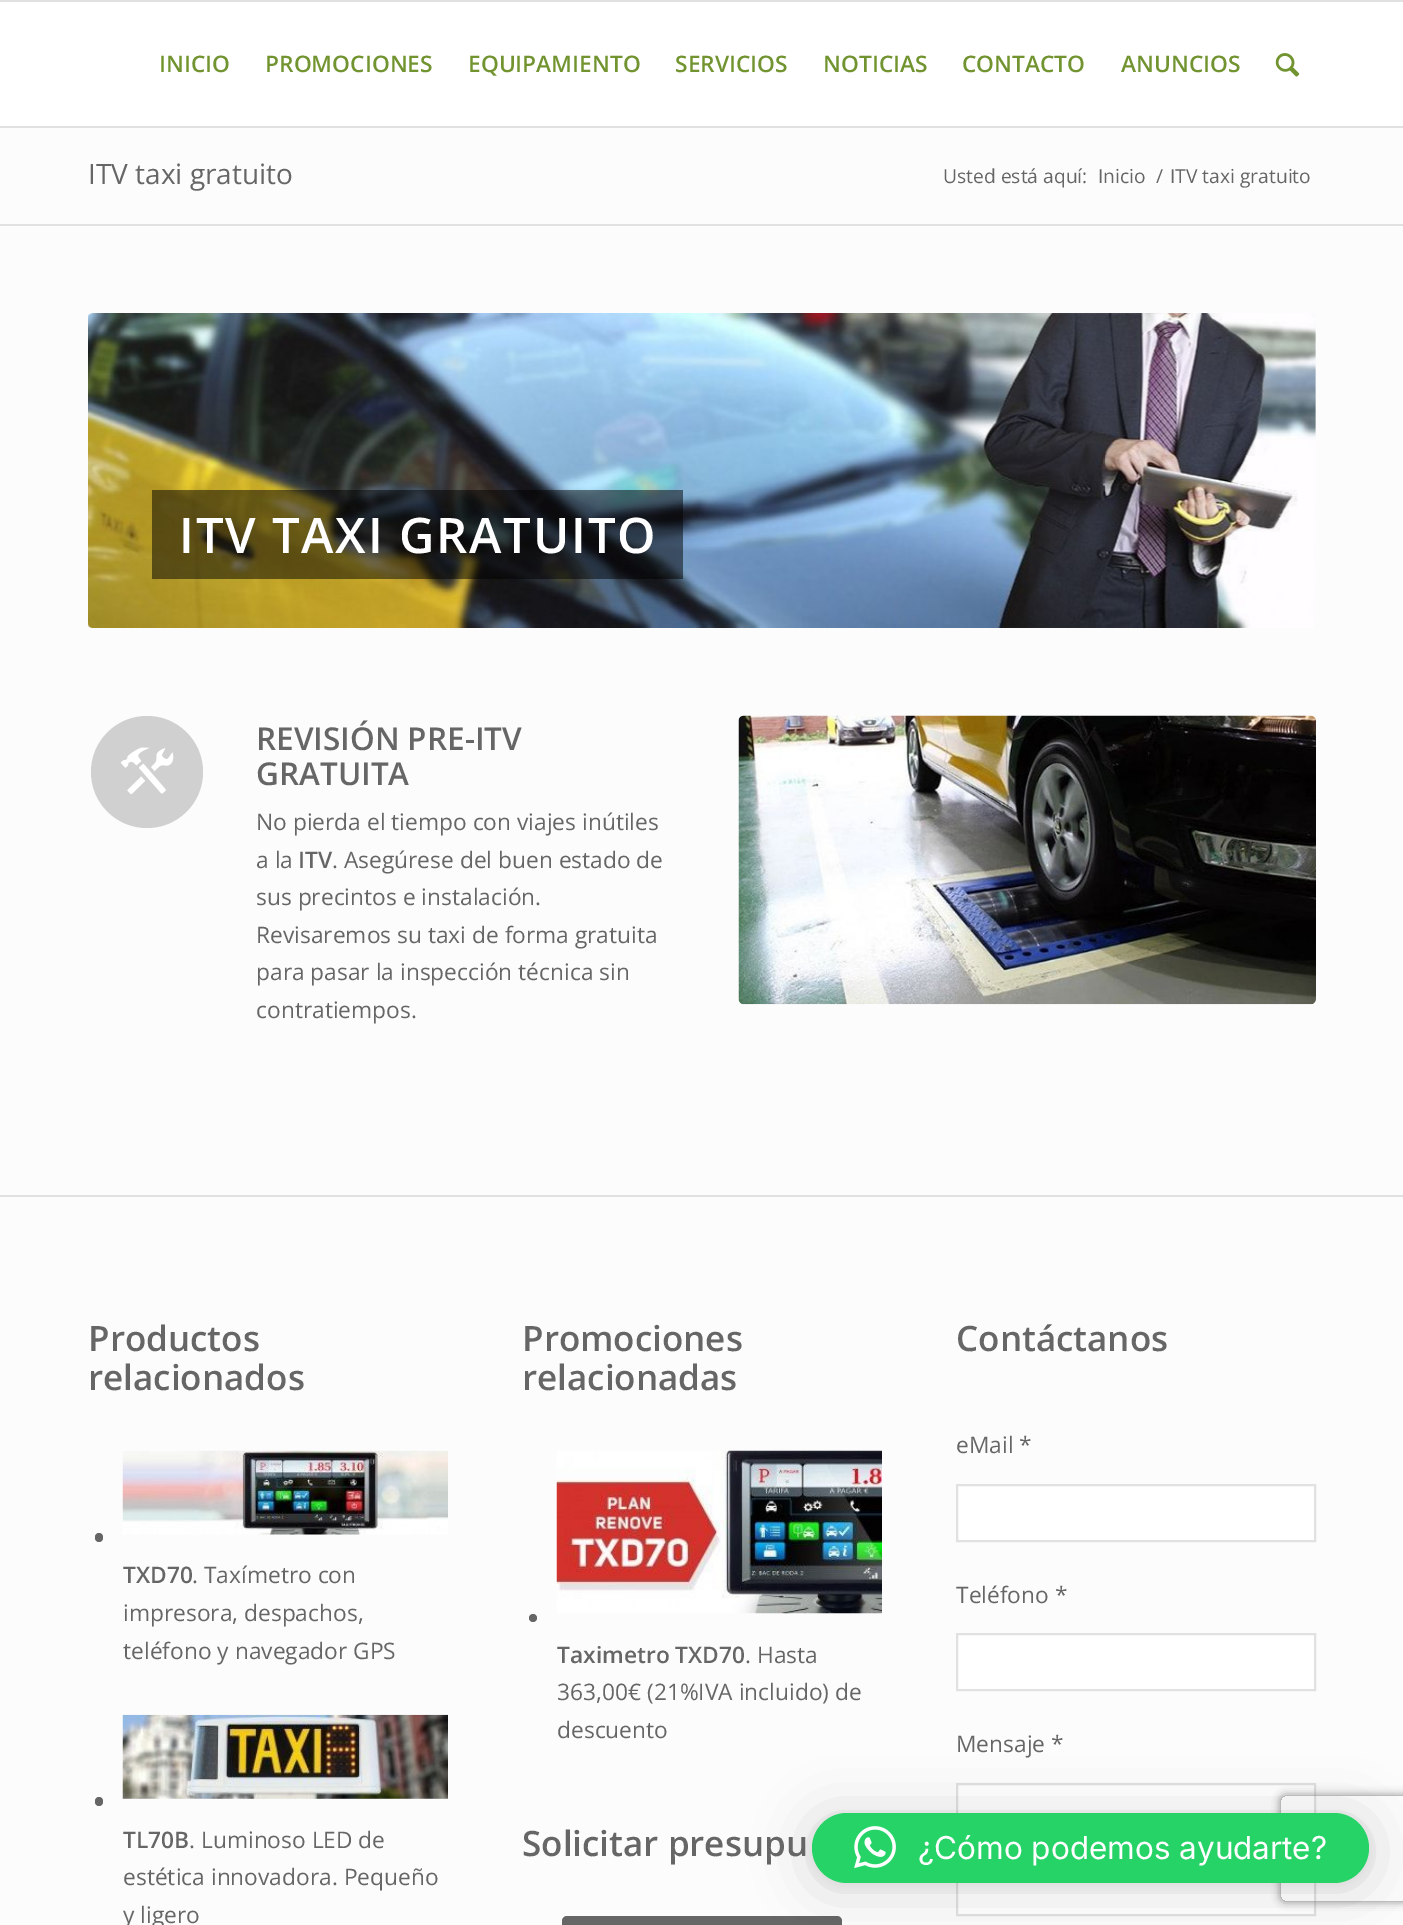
%!PS-Adobe-3.0
%%BoundingBox: 0 0 1403 1925
%%LanguageLevel: 3
%%Pages: 1
%%EndComments
%%BeginProlog
/setalpha { dup .setfillconstantalpha .setstrokeconstantalpha } def
/rrect { 5 dict begin { /r /h /w /y /x } { exch def } forall
  x r add y moveto x w add y 2 copy h add r arct x w add y h add x 1 index r arct
  x y h add x y r arct x y 2 copy exch w add exch r arct closepath end } def
/softshadow { 12 dict begin { /a /b /q /h /w /y /x } { exch def } forall gsave /was 0 def
  9 -2 -9 { dup b mul 4 div /e exch def 1 sub .425 mul 2.718 exch exp 1 add a .99 .min exch div /now exch def
    1 1 now sub 1 was sub div sub setalpha /was now def
    w h .min e 2 mul add 0 gt { x e sub y e sub w e 2 mul add h e 2 mul add
      q e add b .6 mul add w h .min 2 div e add .min 0 .max rrect fill } if } for grestore end } def
/drawimage { 5 dict begin { /h /w /y /x /name } { exch def } forall
  gsave x y translate w h scale
  w h 8 [w 0 0 h 0 0] name (r) file false 3 colorimage grestore end } def
%%EndProlog
%%BeginSetup
<< /PageSize [1403 1925] /PageUsesTransparency true >> setpagedevice
%%EndSetup
%%Page: 1 1
0 .pushpdf14devicefilter
0 1925 translate 1 -1 scale
4 setmiterlimit
0.988 setgray
0 0 1403 1925 rectfill
1 setgray
0 2 1403 124 rectfill
0.882 setgray
0 0 1403 2 rectfill
0 126 1403 2 rectfill
(images/1.raw) 1275 53 25 24 drawimage
0 224 1403 2 rectfill
(images/2.raw) 88 313 1228 315 drawimage
0.5 setalpha
0 setgray
152 490 531 89 rectfill
1 setalpha
0.816 setgray
newpath 147 772 56 0 360 arc closepath fill
(images/3.raw) 120 747 54 47 drawimage
(images/4.raw) 738 715 578 290 drawimage
0.882 setgray
0 1195 1403 2 rectfill
(images/5.raw) 122 1450 326 85 drawimage
0.4 setgray
95 1533 8 9 4 rrect fill
(images/6.raw) 122 1714 326 85 drawimage
95 1797 8 9 4 rrect fill
(images/7.raw) 556 1450 326 164 drawimage
newpath 533 1618 4 0 360 arc closepath fill
562 1916 280 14 5 rrect fill
1 setgray
newpath 957 1485 moveto 1315 1485 lineto 1315 1541 lineto 957 1541 lineto closepath gsave fill grestore
0.882 setgray
2 setlinewidth
stroke
1 setgray
newpath 957 1634 moveto 1315 1634 lineto 1315 1690 lineto 957 1690 lineto closepath gsave fill grestore
0.882 setgray
stroke
1 setgray
newpath 957 1784 moveto 1315 1784 lineto 1315 1915 lineto 957 1915 lineto closepath gsave fill grestore
0.882 setgray
stroke
gsave
newpath 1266 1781 moveto 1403 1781 lineto 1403 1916 lineto 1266 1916 lineto closepath 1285 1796 moveto 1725 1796 lineto 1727 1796 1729 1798 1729 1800 curveto 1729 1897 lineto 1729 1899 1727 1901 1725 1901 curveto 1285 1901 lineto 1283 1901 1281 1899 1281 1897 curveto 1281 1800 lineto 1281 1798 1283 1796 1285 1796 curveto closepath eoclip newpath
0.502 setgray
1281 1796 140 105 4 4.5 1 softshadow
grestore
0 setgray
812 1817 557 70 35 28 0.16 softshadow
812 1815 557 70 35 5 0.06 softshadow
0.145 0.827 0.4 setrgbcolor
812 1813 557 70 35 rrect fill
(images/8.raw) 854 1826 42 43 drawimage
/OpenSans-SemiBold [22.75 0 0 -22.75 0 0] selectfont
0.443 0.58 0.188 setrgbcolor
159 72 moveto (INICIO) show
265 72 moveto (PROMOCIONES) show
468 72 moveto (EQUIPAMIENTO) show
675 72 moveto (SERVICIOS) show
823 72 moveto (NOTICIAS) show
962 72 moveto (CONTACTO) show
1121 72 moveto (ANUNCIOS) show
/OpenSans-Regular [28 0 0 -28 0 0] selectfont
0.4 setgray
88 184 moveto (ITV taxi gratuito) show
/OpenSans-Regular [19.25 0 0 -19.25 0 0] selectfont
943 183 moveto (Usted está aquí:) show
1098 183 moveto (Inicio) show
1156 183 moveto (/) show
1170 183 moveto (ITV taxi gratuito) show
/OpenSans-SemiBold [49 0 0 -49 0 0] selectfont
1 setgray
179 553 moveto 1.75 0 (ITV TAXI GRATUITO) ashow
/OpenSans-SemiBold [31.5 0 0 -31.5 0 0] selectfont
0.4 setgray
256 750 moveto (REVISIÓN PRE-ITV) show
256 785 moveto (GRATUITA) show
/OpenSans-Regular [22.75 0 0 -22.75 0 0] selectfont
256 830 moveto (No pierda el tiempo con viajes inútiles) show
256 868 moveto (a la) show
/OpenSans-SemiBold [22.75 0 0 -22.75 0 0] selectfont
298 868 moveto (ITV) show
/OpenSans-Regular [22.75 0 0 -22.75 0 0] selectfont
332 868 moveto (. Asegúrese del buen estado de) show
256 905 moveto (sus precintos e instalación.) show
256 943 moveto (Revisaremos su taxi de forma gratuita) show
256 980 moveto (para pasar la inspección técnica sin) show
256 1018 moveto (contratiempos.) show
/OpenSans-SemiBold [35 0 0 -35 0 0] selectfont
88 1351 moveto (Productos) show
88 1390 moveto (relacionados) show
/OpenSans-SemiBold [22.75 0 0 -22.75 0 0] selectfont
123 1583 moveto (TXD70) show
/OpenSans-Regular [22.75 0 0 -22.75 0 0] selectfont
192 1583 moveto (. Taxímetro con) show
123 1621 moveto (impresora, despachos,) show
123 1659 moveto (teléfono y navegador GPS) show
/OpenSans-SemiBold [22.75 0 0 -22.75 0 0] selectfont
123 1848 moveto (TL70B) show
/OpenSans-Regular [22.75 0 0 -22.75 0 0] selectfont
189 1848 moveto (. Luminoso LED de) show
123 1885 moveto (estética innovadora. Pequeño) show
123 1923 moveto (y ligero) show
/OpenSans-SemiBold [35 0 0 -35 0 0] selectfont
522 1351 moveto (Promociones) show
522 1390 moveto (relacionadas) show
/OpenSans-SemiBold [22.75 0 0 -22.75 0 0] selectfont
557 1663 moveto (Taximetro TXD70) show
/OpenSans-Regular [22.75 0 0 -22.75 0 0] selectfont
745 1663 moveto (. Hasta) show
557 1700 moveto (363,00€ \(21%IVA incluido\) de) show
557 1738 moveto (descuento) show
/OpenSans-SemiBold [35 0 0 -35 0 0] selectfont
522 1856 moveto (Solicitar presupu) show
956 1351 moveto (Contáctanos) show
/OpenSans-Regular [22.75 0 0 -22.75 0 0] selectfont
956 1453 moveto (eMail *) show
956 1603 moveto (Teléfono *) show
956 1752 moveto (Mensaje *) show
/Inter-Regular [31.5 0 0 -31.5 0 0] selectfont
1 setgray
918 1859 moveto (¿Cómo podemos ayudarte?) show
.poppdf14devicefilter showpage
%%EOF
